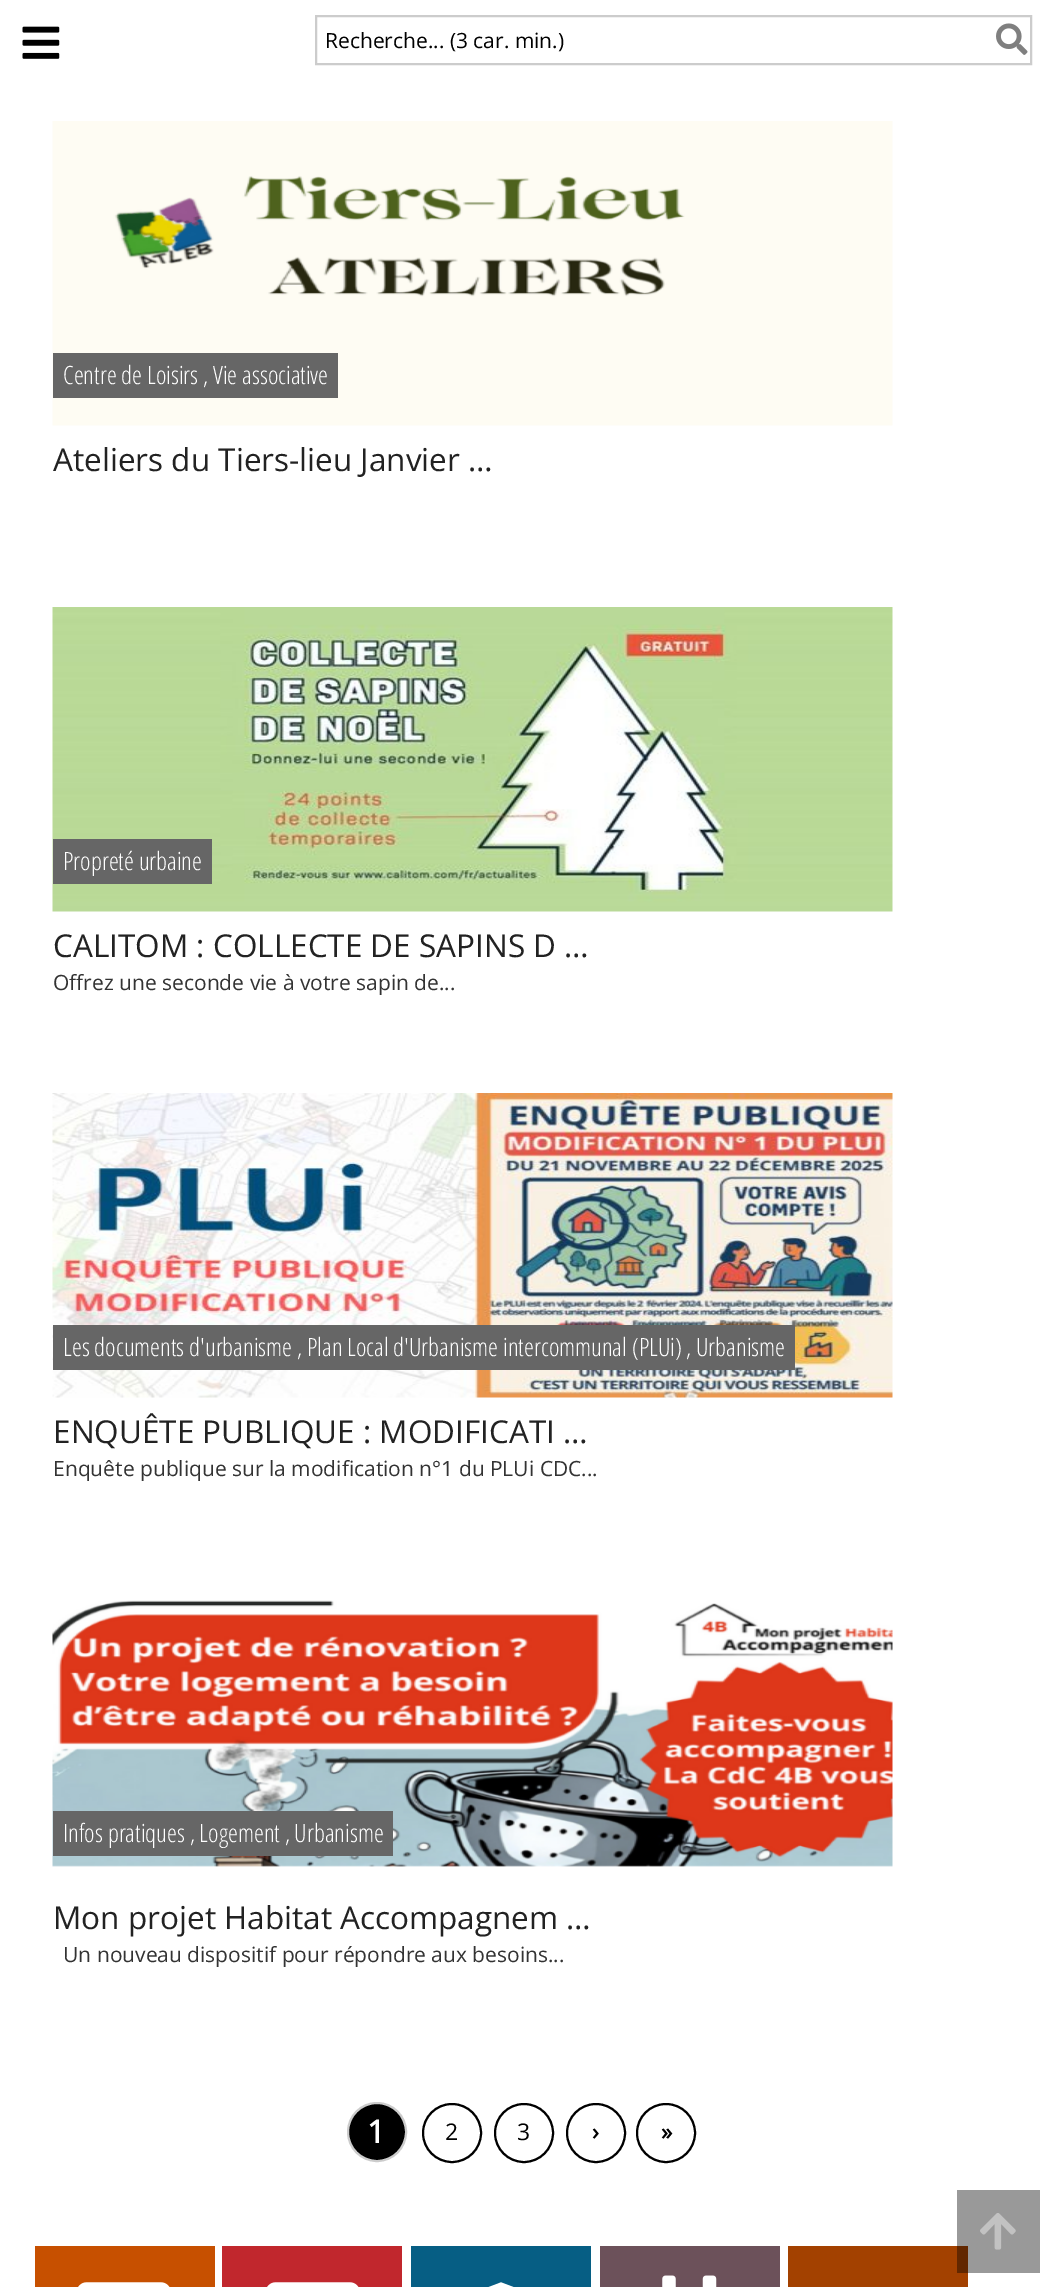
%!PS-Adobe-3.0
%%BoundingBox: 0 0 1054 2287
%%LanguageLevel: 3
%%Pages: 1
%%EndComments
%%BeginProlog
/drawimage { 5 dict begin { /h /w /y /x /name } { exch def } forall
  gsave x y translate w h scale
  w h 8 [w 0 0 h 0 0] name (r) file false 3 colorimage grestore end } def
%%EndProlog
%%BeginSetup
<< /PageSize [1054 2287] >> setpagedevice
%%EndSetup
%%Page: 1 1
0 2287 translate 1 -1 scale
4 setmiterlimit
1 setgray
0 0 1054 2287 rectfill
0.6 setgray
957 2190 83 83 rectfill
(images/1.raw) 22 26 38 33 drawimage
0.8 setgray
2 setlinewidth
316 16 715 48 rectstroke
(images/2.raw) 996 23 32 32 drawimage
(images/3.raw) 52 121 841 305 drawimage
0.4 setgray
53 353 285 45 rectfill
(images/4.raw) 52 607 841 305 drawimage
53 839 159 45 rectfill
(images/5.raw) 52 1093 841 305 drawimage
53 1325 742 45 rectfill
(images/6.raw) 52 1600 841 267 drawimage
53 1811 340 45 rectfill
0 setgray
newpath 377 2132 29 0 360 arc closepath gsave fill grestore
0.8 setgray
stroke
0 setgray
newpath 452 2133 29 0 360 arc closepath stroke
newpath 524 2133 29 0 360 arc closepath stroke
newpath 596 2133 29 0 360 arc closepath stroke
newpath 666 2133 29 0 360 arc closepath stroke
0.78 0.314 0 setrgbcolor
35 2246 180 41 rectfill
(images/7.raw) 78 2282 92 5 drawimage
0.757 0.153 0.176 setrgbcolor
222 2246 180 41 rectfill
(images/8.raw) 267 2282 92 5 drawimage
0.024 0.369 0.518 setrgbcolor
411 2246 180 41 rectfill
(images/9.raw) 488 2282 26 5 drawimage
0.424 0.318 0.353 setrgbcolor
600 2246 180 41 rectfill
(images/10.raw) 662 2275 55 12 drawimage
0.639 0.255 0 setrgbcolor
788 2246 180 41 rectfill
0.384 0.153 0 setrgbcolor
957 2246 11 27 rectfill
(images/11.raw) 980 2213 36 37 drawimage
/OpenSans-Regular [21 0 0 -21 0 0] selectfont
0 setgray
325 48 moveto (Recherche... \(3 car. min.\)) show
/OpenSansCondensed-Light [25.2 0 0 -25.2 0 0] selectfont
1 setgray
63 384 moveto (Centre de Loisirs , Vie associative) show
/OpenSans-Regular [31.5 0 0 -31.5 0 0] selectfont
0.133 setgray
53 471 moveto (Ateliers du Tiers-lieu Janvier …) show
/OpenSansCondensed-Light [25.2 0 0 -25.2 0 0] selectfont
1 setgray
63 870 moveto (Propreté urbaine) show
/OpenSans-Regular [31.5 0 0 -31.5 0 0] selectfont
0.133 setgray
53 957 moveto (CALITOM : COLLECTE DE SAPINS D …) show
/OpenSans-Regular [21 0 0 -21 0 0] selectfont
0.2 setgray
53 990 moveto (Offrez une seconde vie à votre sapin de...) show
/OpenSansCondensed-Light [25.2 0 0 -25.2 0 0] selectfont
1 setgray
63 1356 moveto (Les documents d'urbanisme , Plan Local d'Urbanisme intercommunal \(PLUi\)) show
686 1356 moveto (, Urbanisme) show
/OpenSans-Regular [31.5 0 0 -31.5 0 0] selectfont
0.133 setgray
53 1443 moveto (ENQUÊTE PUBLIQUE : MODIFICATI …) show
/OpenSans-Regular [21 0 0 -21 0 0] selectfont
0.2 setgray
53 1476 moveto (Enquête publique sur la modification n°1 du PLUi CDC...) show
/OpenSansCondensed-Light [25.2 0 0 -25.2 0 0] selectfont
1 setgray
63 1842 moveto (Infos pratiques , Logement , Urbanisme) show
/OpenSans-Regular [31.5 0 0 -31.5 0 0] selectfont
0.133 setgray
53 1929 moveto (Mon projet Habitat Accompagnem …) show
/OpenSans-Regular [21 0 0 -21 0 0] selectfont
0.2 setgray
63 1962 moveto (Un nouveau dispositif pour répondre aux besoins...) show
/OpenSans-Bold [31.5 0 0 -31.5 0 0] selectfont
1 setgray
367 2143 moveto (1) show
/OpenSans-Regular [23 0 0 -23 0 0] selectfont
0 setgray
445 2140 moveto (2) show
517 2140 moveto (3) show
/OpenSans-Bold [23 0 0 -23 0 0] selectfont
592 2140 moveto (›) show
661 2140 moveto (») show
showpage
%%EOF
